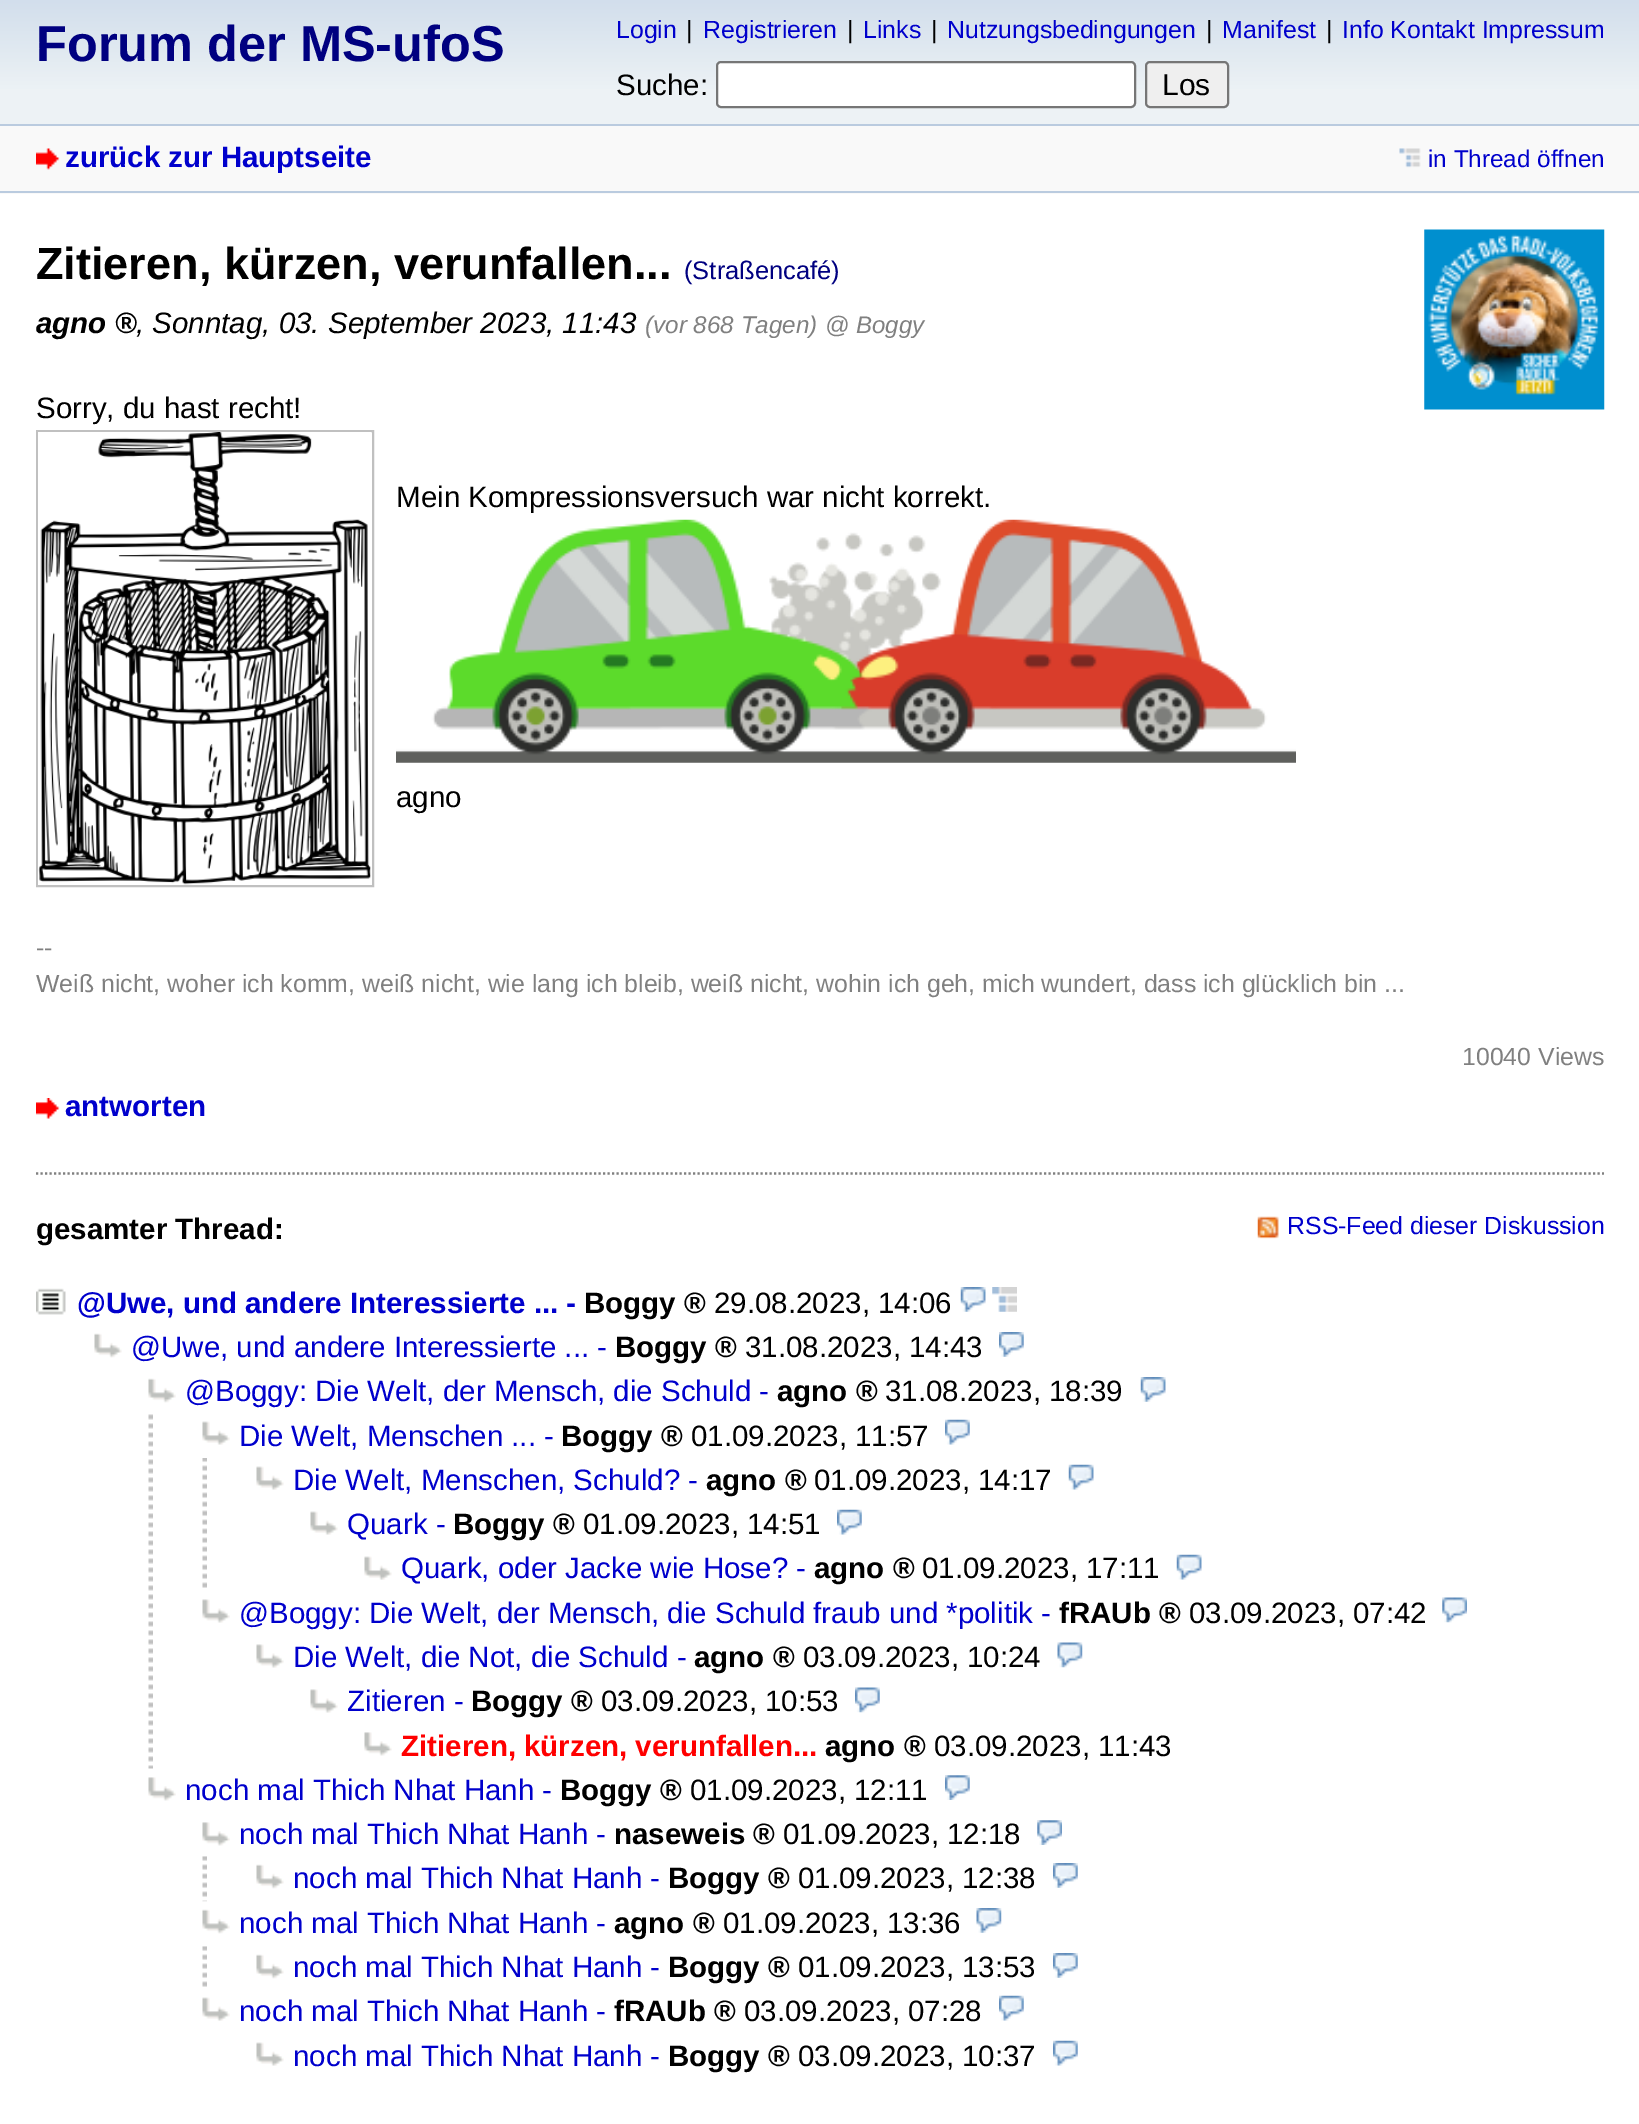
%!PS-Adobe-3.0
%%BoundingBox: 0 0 1639 2124
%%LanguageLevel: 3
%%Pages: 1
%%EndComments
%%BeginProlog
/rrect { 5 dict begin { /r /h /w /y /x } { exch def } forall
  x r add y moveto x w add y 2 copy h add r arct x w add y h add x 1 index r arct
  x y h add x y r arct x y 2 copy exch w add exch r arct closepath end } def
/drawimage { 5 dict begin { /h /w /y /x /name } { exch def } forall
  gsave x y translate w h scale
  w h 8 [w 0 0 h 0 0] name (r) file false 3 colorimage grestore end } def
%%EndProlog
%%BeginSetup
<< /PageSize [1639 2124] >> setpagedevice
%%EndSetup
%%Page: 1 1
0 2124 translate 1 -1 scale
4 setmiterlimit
0.976 setgray
0 0 1639 2124 rectfill
gsave newpath 0 0 moveto 1639 0 lineto 1639 124 lineto 0 124 lineto closepath clip newpath
<< /ShadingType 2 /ColorSpace /DeviceRGB /Coords [820 0 820 124] /Extend [true true] /Function << /FunctionType 3 /Domain [0 1] /Functions [<< /FunctionType 2 /Domain [0 1] /C0 [0.824 0.871 0.925] /C1 [0.929 0.949 0.961] /N 1 >> << /FunctionType 2 /Domain [0 1] /C0 [0.929 0.949 0.961] /C1 [0.929 0.949 0.961] /N 1 >>] /Bounds [0.73] /Encode [0 1 0 1] >> >> shfill grestore
1 setgray
717 62 418 45 4 rrect gsave fill grestore
0.463 setgray
2 setlinewidth
stroke
0.937 setgray
1146 62 82 45 4 rrect gsave fill grestore
0.463 setgray
stroke
0.729 0.796 0.875 setrgbcolor
0 124 1639 2 rectfill
0 191 1639 2 rectfill
(images/1.raw) 36 148 24 22 drawimage
(images/2.raw) 1399 148 22 20 drawimage
1 setgray
0 194 1639 1930 rectfill
(images/3.raw) 1424 229 181 181 drawimage
0.753 setgray
37 431 336 455 rectstroke
(images/4.raw) 38 432 333 453 drawimage
(images/5.raw) 396 519 900 244 drawimage
(images/6.raw) 36 1098 24 21 drawimage
0.502 setgray
2.2 setlinewidth
[2.25 2.25] 0 setdash
newpath 36 1173.5 moveto 1604 1173.5 lineto stroke
(images/7.raw) 1257 1216 22 23 drawimage
(images/8.raw) 36 1288 30 27 drawimage
(images/9.raw) 960 1287 26 25 drawimage
(images/10.raw) 992 1287 25 25 drawimage
(images/11.raw) 94 1333 28 25 drawimage
(images/12.raw) 999 1332 25 25 drawimage
(images/13.raw) 148 1378 28 25 drawimage
(images/14.raw) 1140 1377 26 25 drawimage
(images/15.raw) 148 1414 5 355 drawimage
(images/16.raw) 202 1421 28 24 drawimage
(images/17.raw) 945 1419 25 26 drawimage
(images/18.raw) 202 1458 5 130 drawimage
(images/19.raw) 256 1466 28 24 drawimage
(images/20.raw) 1068 1464 26 26 drawimage
(images/19.raw) 310 1511 28 24 drawimage
(images/21.raw) 837 1509 25 26 drawimage
(images/22.raw) 364 1556 28 24 drawimage
(images/23.raw) 1176 1554 26 26 drawimage
(images/24.raw) 202 1599 28 24 drawimage
(images/25.raw) 1442 1597 25 26 drawimage
(images/26.raw) 256 1644 28 24 drawimage
(images/27.raw) 1057 1642 26 26 drawimage
(images/26.raw) 310 1689 28 24 drawimage
(images/28.raw) 855 1687 25 26 drawimage
(images/29.raw) 364 1732 28 24 drawimage
(images/30.raw) 148 1777 28 24 drawimage
(images/31.raw) 945 1775 25 25 drawimage
(images/30.raw) 202 1822 28 24 drawimage
(images/32.raw) 1037 1820 25 25 drawimage
(images/33.raw) 202 1856 5 46 drawimage
(images/11.raw) 256 1864 28 25 drawimage
(images/34.raw) 1053 1863 25 25 drawimage
(images/13.raw) 202 1909 28 25 drawimage
(images/35.raw) 976 1908 26 25 drawimage
(images/36.raw) 202 1946 5 41 drawimage
(images/11.raw) 256 1954 28 25 drawimage
(images/34.raw) 1053 1953 25 25 drawimage
(images/16.raw) 202 1997 28 24 drawimage
(images/37.raw) 999 1995 25 26 drawimage
(images/19.raw) 256 2042 28 24 drawimage
(images/17.raw) 1053 2040 25 26 drawimage
/LiberationSans-Bold [50.5 0 0 -50.5 0 0] selectfont
0 0 0.502 setrgbcolor
36 61 moveto (Forum der MS-ufoS) show
/LiberationSans-Regular [24.85 0 0 -24.85 0 0] selectfont
0 0 0.8 setrgbcolor
616 38 moveto (Login) show
0 setgray
686 38 moveto (|) show
0 0 0.8 setrgbcolor
703 38 moveto (Registrieren) show
0 setgray
847 38 moveto (|) show
0 0 0.8 setrgbcolor
863 38 moveto (Links) show
0 setgray
931 38 moveto (|) show
0 0 0.8 setrgbcolor
947 38 moveto (Nutzungsbedingungen) show
0 setgray
1206 38 moveto (|) show
0 0 0.8 setrgbcolor
1222 38 moveto (Manifest) show
0 setgray
1326 38 moveto (|) show
0 0 0.8 setrgbcolor
1342 38 moveto (Info Kontakt Impressum) show
/LiberationSans-Regular [29.5 0 0 -29.5 0 0] selectfont
0 setgray
616 95 moveto (Suche:) show
/LiberationSans-Regular [30 0 0 -30 0 0] selectfont
1162 95 moveto (Los) show
/LiberationSans-Bold [29.5 0 0 -29.5 0 0] selectfont
0 0 0.8 setrgbcolor
65 167 moveto (zurück zur Hauptseite) show
/LiberationSans-Regular [24.25 0 0 -24.25 0 0] selectfont
1428 167 moveto (in Thread öffnen) show
/LiberationSans-Bold [45 0 0 -45 0 0] selectfont
0 setgray
36 279 moveto (Zitieren, kürzen, verunfallen...) show
/LiberationSans-Regular [25.5 0 0 -25.5 0 0] selectfont
0 0 0.502 setrgbcolor
684 279 moveto (\(Straßencafé\)) show
/LiberationSans-BoldItalic [29.5 0 0 -29.5 0 0] selectfont
0 setgray
36 333 moveto (agno ®) show
/LiberationSans-Italic [29.5 0 0 -29.5 0 0] selectfont
136 333 moveto (, Sonntag, 03. September 2023, 11:43) show
/LiberationSans-Italic [24.25 0 0 -24.25 0 0] selectfont
0.502 setgray
645 333 moveto (\(vor 868 Tagen\)) show
/LiberationSans-Italic [24 0 0 -24 0 0] selectfont
825 333 moveto (@ Boggy) show
/LiberationSans-Regular [29.5 0 0 -29.5 0 0] selectfont
0 setgray
36 418 moveto (Sorry, du hast recht!) show
396 507 moveto (Mein Kompressionsversuch war nicht korrekt.) show
396 807 moveto (agno) show
/LiberationSans-Regular [24.85 0 0 -24.85 0 0] selectfont
0.502 setgray
36 956 moveto (--) show
36 992 moveto (Weiß nicht, woher ich komm, weiß nicht, wie lang ich bleib, weiß nicht, wohin ich geh, mich wundert, dass ich glücklich bin ...) show
1462 1065 moveto (10040 Views) show
/LiberationSans-Bold [29.5 0 0 -29.5 0 0] selectfont
0 0 0.8 setrgbcolor
65 1116 moveto (antworten) show
0 setgray
36 1239 moveto (gesamter Thread:) show
/LiberationSans-Regular [24.85 0 0 -24.85 0 0] selectfont
0 0 0.8 setrgbcolor
1287 1234 moveto (RSS-Feed dieser Diskussion) show
/LiberationSans-Bold [29.5 0 0 -29.5 0 0] selectfont
77 1313 moveto (@Uwe, und andere Interessierte ...) show
566 1313 moveto (-) show
0 setgray
584 1313 moveto (Boggy ®) show
/LiberationSans-Regular [29.5 0 0 -29.5 0 0] selectfont
714 1313 moveto (29.08.2023, 14:06) show
0 0 0.8 setrgbcolor
131 1357 moveto (@Uwe, und andere Interessierte ...) show
597 1357 moveto (-) show
/LiberationSans-Bold [29.5 0 0 -29.5 0 0] selectfont
0 setgray
615 1357 moveto (Boggy ®) show
/LiberationSans-Regular [29.5 0 0 -29.5 0 0] selectfont
745 1357 moveto (31.08.2023, 14:43) show
0 0 0.8 setrgbcolor
185 1401 moveto (@Boggy: Die Welt, der Mensch, die Schuld) show
759 1401 moveto (-) show
/LiberationSans-Bold [29.5 0 0 -29.5 0 0] selectfont
0 setgray
777 1401 moveto (agno ®) show
/LiberationSans-Regular [29.5 0 0 -29.5 0 0] selectfont
885 1401 moveto (31.08.2023, 18:39) show
0 0 0.8 setrgbcolor
239 1446 moveto (Die Welt, Menschen ... -) show
/LiberationSans-Bold [29.5 0 0 -29.5 0 0] selectfont
0 setgray
561 1446 moveto (Boggy ®) show
/LiberationSans-Regular [29.5 0 0 -29.5 0 0] selectfont
691 1446 moveto (01.09.2023, 11:57) show
0 0 0.8 setrgbcolor
293 1490 moveto (Die Welt, Menschen, Schuld? -) show
/LiberationSans-Bold [29.5 0 0 -29.5 0 0] selectfont
0 setgray
706 1490 moveto (agno ®) show
/LiberationSans-Regular [29.5 0 0 -29.5 0 0] selectfont
814 1490 moveto (01.09.2023, 14:17) show
0 0 0.8 setrgbcolor
347 1534 moveto (Quark -) show
/LiberationSans-Bold [29.5 0 0 -29.5 0 0] selectfont
0 setgray
453 1534 moveto (Boggy ®) show
/LiberationSans-Regular [29.5 0 0 -29.5 0 0] selectfont
583 1534 moveto (01.09.2023, 14:51) show
0 0 0.8 setrgbcolor
401 1578 moveto (Quark, oder Jacke wie Hose? -) show
/LiberationSans-Bold [29.5 0 0 -29.5 0 0] selectfont
0 setgray
814 1578 moveto (agno ®) show
/LiberationSans-Regular [29.5 0 0 -29.5 0 0] selectfont
922 1578 moveto (01.09.2023, 17:11) show
0 0 0.8 setrgbcolor
239 1623 moveto (@Boggy: Die Welt, der Mensch, die Schuld fraub und *politik) show
1041 1623 moveto (-) show
/LiberationSans-Bold [29.5 0 0 -29.5 0 0] selectfont
0 setgray
1059 1623 moveto (fRAUb ®) show
/LiberationSans-Regular [29.5 0 0 -29.5 0 0] selectfont
1189 1623 moveto (03.09.2023, 07:42) show
0 0 0.8 setrgbcolor
293 1667 moveto (Die Welt, die Not, die Schuld -) show
/LiberationSans-Bold [29.5 0 0 -29.5 0 0] selectfont
0 setgray
694 1667 moveto (agno ®) show
/LiberationSans-Regular [29.5 0 0 -29.5 0 0] selectfont
803 1667 moveto (03.09.2023, 10:24) show
0 0 0.8 setrgbcolor
347 1711 moveto (Zitieren -) show
/LiberationSans-Bold [29.5 0 0 -29.5 0 0] selectfont
0 setgray
471 1711 moveto (Boggy ®) show
/LiberationSans-Regular [29.5 0 0 -29.5 0 0] selectfont
601 1711 moveto (03.09.2023, 10:53) show
/LiberationSans-Bold [29.5 0 0 -29.5 0 0] selectfont
1 0 0 setrgbcolor
401 1756 moveto (Zitieren, kürzen, verunfallen...) show
0 setgray
825 1756 moveto (agno ®) show
/LiberationSans-Regular [29.5 0 0 -29.5 0 0] selectfont
934 1756 moveto (03.09.2023, 11:43) show
0 0 0.8 setrgbcolor
185 1800 moveto (noch mal Thich Nhat Hanh -) show
/LiberationSans-Bold [29.5 0 0 -29.5 0 0] selectfont
0 setgray
560 1800 moveto (Boggy ®) show
/LiberationSans-Regular [29.5 0 0 -29.5 0 0] selectfont
690 1800 moveto (01.09.2023, 12:11) show
0 0 0.8 setrgbcolor
239 1844 moveto (noch mal Thich Nhat Hanh -) show
/LiberationSans-Bold [29.5 0 0 -29.5 0 0] selectfont
0 setgray
614 1844 moveto (naseweis ®) show
/LiberationSans-Regular [29.5 0 0 -29.5 0 0] selectfont
783 1844 moveto (01.09.2023, 12:18) show
0 0 0.8 setrgbcolor
293 1888 moveto (noch mal Thich Nhat Hanh -) show
/LiberationSans-Bold [29.5 0 0 -29.5 0 0] selectfont
0 setgray
668 1888 moveto (Boggy ®) show
/LiberationSans-Regular [29.5 0 0 -29.5 0 0] selectfont
798 1888 moveto (01.09.2023, 12:38) show
0 0 0.8 setrgbcolor
239 1933 moveto (noch mal Thich Nhat Hanh -) show
/LiberationSans-Bold [29.5 0 0 -29.5 0 0] selectfont
0 setgray
614 1933 moveto (agno ®) show
/LiberationSans-Regular [29.5 0 0 -29.5 0 0] selectfont
723 1933 moveto (01.09.2023, 13:36) show
0 0 0.8 setrgbcolor
293 1977 moveto (noch mal Thich Nhat Hanh -) show
/LiberationSans-Bold [29.5 0 0 -29.5 0 0] selectfont
0 setgray
668 1977 moveto (Boggy ®) show
/LiberationSans-Regular [29.5 0 0 -29.5 0 0] selectfont
798 1977 moveto (01.09.2023, 13:53) show
0 0 0.8 setrgbcolor
239 2021 moveto (noch mal Thich Nhat Hanh -) show
/LiberationSans-Bold [29.5 0 0 -29.5 0 0] selectfont
0 setgray
614 2021 moveto (fRAUb ®) show
/LiberationSans-Regular [29.5 0 0 -29.5 0 0] selectfont
744 2021 moveto (03.09.2023, 07:28) show
0 0 0.8 setrgbcolor
293 2066 moveto (noch mal Thich Nhat Hanh -) show
/LiberationSans-Bold [29.5 0 0 -29.5 0 0] selectfont
0 setgray
668 2066 moveto (Boggy ®) show
/LiberationSans-Regular [29.5 0 0 -29.5 0 0] selectfont
798 2066 moveto (03.09.2023, 10:37) show
showpage
%%EOF
